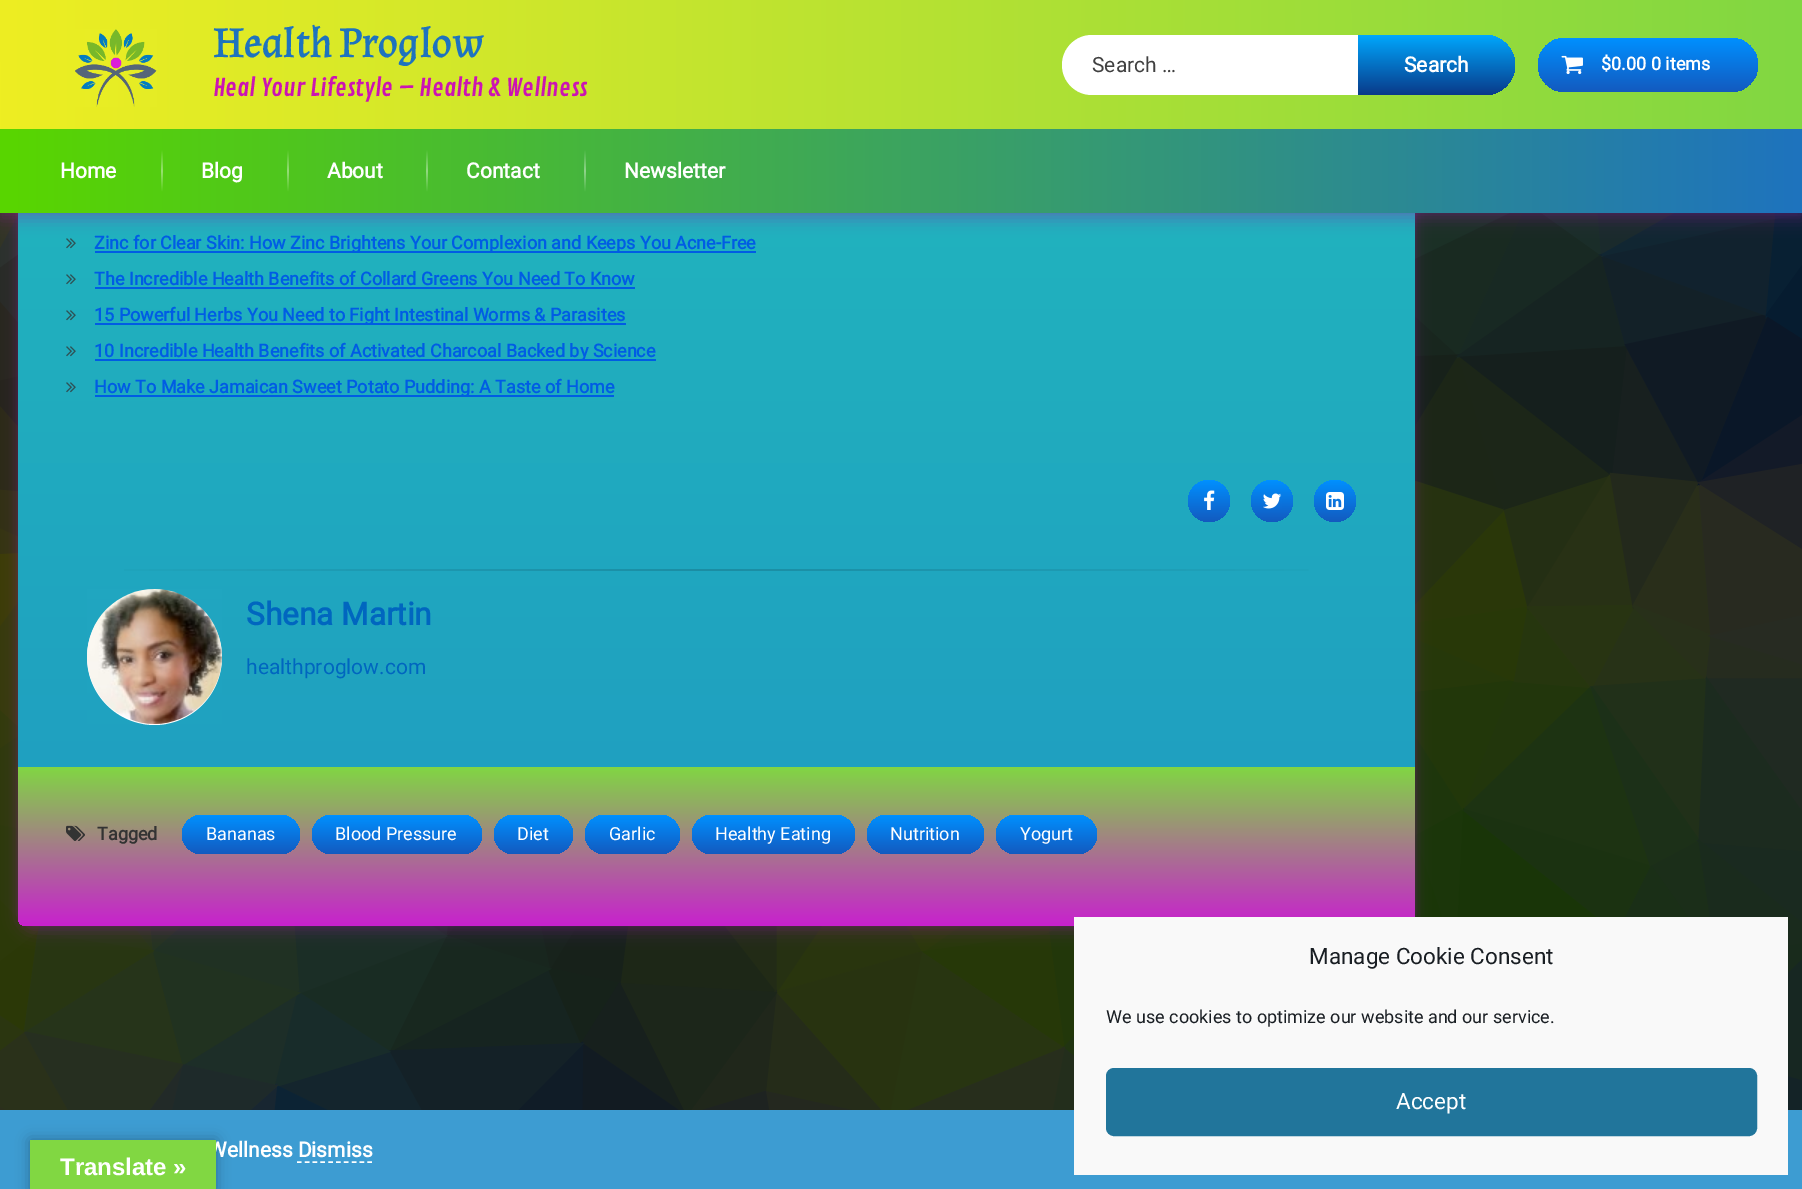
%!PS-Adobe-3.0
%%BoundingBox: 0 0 1802 1189
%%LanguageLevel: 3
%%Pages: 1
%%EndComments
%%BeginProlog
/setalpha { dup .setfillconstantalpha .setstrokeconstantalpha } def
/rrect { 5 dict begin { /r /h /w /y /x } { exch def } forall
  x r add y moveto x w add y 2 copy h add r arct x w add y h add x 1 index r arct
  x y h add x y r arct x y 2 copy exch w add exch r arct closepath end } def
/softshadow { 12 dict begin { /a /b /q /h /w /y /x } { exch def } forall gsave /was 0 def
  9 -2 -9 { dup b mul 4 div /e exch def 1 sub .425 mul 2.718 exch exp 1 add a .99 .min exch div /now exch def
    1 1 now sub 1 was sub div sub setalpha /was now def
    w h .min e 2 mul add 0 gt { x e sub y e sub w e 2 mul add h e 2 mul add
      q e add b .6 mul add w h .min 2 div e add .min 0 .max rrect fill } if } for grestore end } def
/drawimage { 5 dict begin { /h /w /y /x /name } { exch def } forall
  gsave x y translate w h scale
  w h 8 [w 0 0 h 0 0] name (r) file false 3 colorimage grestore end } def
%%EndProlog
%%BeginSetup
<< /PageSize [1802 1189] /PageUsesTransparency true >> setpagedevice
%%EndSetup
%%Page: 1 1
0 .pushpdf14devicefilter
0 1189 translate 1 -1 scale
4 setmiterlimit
1 setgray
0 0 1802 1189 rectfill
(images/13.raw) 0 213 1802 897 drawimage
0.592 0.098 0.627 setrgbcolor
18 -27 1397 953 15 4 0.25 softshadow
18 -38 1397 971 15 7.5 0.25 softshadow
gsave newpath 33 -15 moveto 1400 -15 lineto 1408.5 -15 1415 -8.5 1415 0 curveto 1415 918 lineto 1415 922.5 1411.5 926 1407 926 curveto 26 926 lineto 21.5 926 18 922.5 18 918 curveto 18 0 lineto 18 -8.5 24.5 -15 33 -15 curveto closepath clip newpath
<< /ShadingType 2 /ColorSpace /DeviceRGB /Coords [716 -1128 716 926] /Extend [true true] /Function << /FunctionType 2 /Domain [0 1] /C0 [0.137 0.867 0.722] /C1 [0.122 0.608 0.757] /N 1 >> >> shfill grestore
0 0 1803 213 0 4 0.25 softshadow
(images/3.raw) 66 238 10 11 drawimage
0 8 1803 213 0 7.5 0.25 softshadow
gsave newpath 0 0 moveto 1802 0 lineto 1802 129 lineto 0 129 lineto closepath clip newpath
<< /ShadingType 2 /ColorSpace /DeviceRGB /Coords [0 65 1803 64] /Extend [true true] /Function << /FunctionType 2 /Domain [0 1] /C0 [0.933 0.933 0.133] /C1 [0.506 0.843 0.259] /N 1 >> >> shfill grestore
(images/1.raw) 75 29 82 78 drawimage
1 setgray
1062 35 450 60 30 rrect fill
gsave newpath 1358 35 moveto 1485 35 lineto 1501.5 35 1515 48.5 1515 65 curveto 1515 81.5 1501.5 95 1485 95 curveto 1358 95 lineto closepath clip newpath
<< /ShadingType 2 /ColorSpace /DeviceRGB /Coords [1436 34 1436 95] /Extend [true true] /Function << /FunctionType 2 /Domain [0 1] /C0 [0 0.663 1] /C1 [0.035 0.227 0.537] /N 1 >> >> shfill grestore
gsave 1538 38 220 54 27 rrect clip newpath
<< /ShadingType 2 /ColorSpace /DeviceRGB /Coords [1648 92 1648 38] /Extend [true true] /Function << /FunctionType 2 /Domain [0 1] /C0 [0.075 0.353 0.749] /C1 [0 0.565 1] /N 1 >> >> shfill grestore
(images/2.raw) 1561 55 22 20 drawimage
gsave newpath 0 129 moveto 1802 129 lineto 1802 213 lineto 0 213 lineto closepath clip newpath
<< /ShadingType 2 /ColorSpace /DeviceRGB /Coords [0 171 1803 171] /Extend [true true] /Function << /FunctionType 2 /Domain [0 1] /C0 [0.349 0.839 0] /C1 [0.118 0.451 0.745] /N 1 >> >> shfill grestore
gsave newpath 161 150 moveto 163 150 lineto 163 192 lineto 161 192 lineto closepath clip newpath
<< /ShadingType 2 /ColorSpace /DeviceRGB /Coords [161 150 161 192] /Extend [true true] /Function << /FunctionType 3 /Domain [0 1] /Functions [<< /FunctionType 2 /Domain [0 1] /C0 [0.329 0.804 0.067] /C1 [0.596 0.882 0.439] /N 1 >> << /FunctionType 2 /Domain [0 1] /C0 [0.596 0.882 0.439] /C1 [0.329 0.804 0.067] /N 1 >>] /Bounds [0.5] /Encode [0 1 0 1] >> >> shfill grestore
gsave newpath 287 150 moveto 289 150 lineto 289 192 lineto 287 192 lineto closepath clip newpath
<< /ShadingType 2 /ColorSpace /DeviceRGB /Coords [287 150 287 192] /Extend [true true] /Function << /FunctionType 3 /Domain [0 1] /Functions [<< /FunctionType 2 /Domain [0 1] /C0 [0.314 0.776 0.118] /C1 [0.588 0.867 0.471] /N 1 >> << /FunctionType 2 /Domain [0 1] /C0 [0.588 0.867 0.471] /C1 [0.314 0.776 0.118] /N 1 >>] /Bounds [0.5] /Encode [0 1 0 1] >> >> shfill grestore
gsave newpath 426 150 moveto 428 150 lineto 428 192 lineto 426 192 lineto closepath clip newpath
<< /ShadingType 2 /ColorSpace /DeviceRGB /Coords [427 150 427 192] /Extend [true true] /Function << /FunctionType 3 /Domain [0 1] /Functions [<< /FunctionType 2 /Domain [0 1] /C0 [0.294 0.749 0.176] /C1 [0.576 0.851 0.506] /N 1 >> << /FunctionType 2 /Domain [0 1] /C0 [0.576 0.851 0.506] /C1 [0.294 0.749 0.176] /N 1 >>] /Bounds [0.5] /Encode [0 1 0 1] >> >> shfill grestore
gsave newpath 584 150 moveto 586 150 lineto 586 192 lineto 584 192 lineto closepath clip newpath
<< /ShadingType 2 /ColorSpace /DeviceRGB /Coords [584 150 584 192] /Extend [true true] /Function << /FunctionType 3 /Domain [0 1] /Functions [<< /FunctionType 2 /Domain [0 1] /C0 [0.275 0.714 0.243] /C1 [0.565 0.827 0.545] /N 1 >> << /FunctionType 2 /Domain [0 1] /C0 [0.565 0.827 0.545] /C1 [0.275 0.714 0.243] /N 1 >>] /Bounds [0.5] /Encode [0 1 0 1] >> >> shfill grestore
0 0.361 0.894 setrgbcolor
95 251 661 2 rectfill
(images/4.raw) 66 274 10 11 drawimage
95 287 540 2 rectfill
(images/5.raw) 66 310 10 11 drawimage
95 323 531 2 rectfill
(images/6.raw) 66 346 10 11 drawimage
95 359 561 2 rectfill
(images/7.raw) 66 382 10 11 drawimage
95 395 519 2 rectfill
gsave newpath 1209 501 21 0 360 arc closepath clip newpath
<< /ShadingType 2 /ColorSpace /DeviceRGB /Coords [1209 522 1209 480] /Extend [true true] /Function << /FunctionType 2 /Domain [0 1] /C0 [0.075 0.353 0.749] /C1 [0 0.565 1] /N 1 >> >> shfill grestore
(images/8.raw) 1204 490 11 20 drawimage
gsave newpath 1272 501 21 0 360 arc closepath clip newpath
<< /ShadingType 2 /ColorSpace /DeviceRGB /Coords [1272 522 1272 480] /Extend [true true] /Function << /FunctionType 2 /Domain [0 1] /C0 [0.075 0.353 0.749] /C1 [0 0.565 1] /N 1 >> >> shfill grestore
(images/9.raw) 1263 493 19 16 drawimage
gsave newpath 1335 501 21 0 360 arc closepath clip newpath
<< /ShadingType 2 /ColorSpace /DeviceRGB /Coords [1335 522 1335 480] /Extend [true true] /Function << /FunctionType 2 /Domain [0 1] /C0 [0.075 0.353 0.749] /C1 [0 0.565 1] /N 1 >> >> shfill grestore
(images/10.raw) 1326 492 18 18 drawimage
gsave newpath 124 569 moveto 1309 569 lineto 1309 571 lineto 124 571 lineto closepath clip newpath
<< /ShadingType 2 /ColorSpace /DeviceRGB /Coords [66 569 1367 569] /Extend [true true] /Function << /FunctionType 3 /Domain [0 1] /Functions [<< /FunctionType 2 /Domain [0 1] /C0 [0.125 0.651 0.749] /C1 [0.106 0.553 0.639] /N 1 >> << /FunctionType 2 /Domain [0 1] /C0 [0.106 0.553 0.639] /C1 [0.125 0.651 0.749] /N 1 >>] /Bounds [0.5] /Encode [0 1 0 1] >> >> shfill grestore
1 setgray
newpath 154.5 657.5 67.5 0 360 arc closepath fill
(images/11.raw) 87 589 135 135 drawimage
gsave newpath 18 767 moveto 1415 767 lineto 1415 918 lineto 1415 922.5 1411.5 926 1407 926 curveto 26 926 lineto 21.5 926 18 922.5 18 918 curveto closepath clip newpath
<< /ShadingType 2 /ColorSpace /DeviceRGB /Coords [716 766 716 926] /Extend [true true] /Function << /FunctionType 2 /Domain [0 1] /C0 [0.506 0.843 0.259] /C1 [0.784 0.129 0.808] /N 1 >> >> shfill grestore
(images/12.raw) 66 825 19 16 drawimage
gsave 182 815 118 39 19.5 rrect clip newpath
<< /ShadingType 2 /ColorSpace /DeviceRGB /Coords [241 854 241 815] /Extend [true true] /Function << /FunctionType 2 /Domain [0 1] /C0 [0.075 0.353 0.749] /C1 [0 0.565 1] /N 1 >> >> shfill grestore
gsave 312 815 170 39 19.5 rrect clip newpath
<< /ShadingType 2 /ColorSpace /DeviceRGB /Coords [397 854 397 815] /Extend [true true] /Function << /FunctionType 2 /Domain [0 1] /C0 [0.075 0.353 0.749] /C1 [0 0.565 1] /N 1 >> >> shfill grestore
gsave 494 815 79 39 19.5 rrect clip newpath
<< /ShadingType 2 /ColorSpace /DeviceRGB /Coords [533 854 533 815] /Extend [true true] /Function << /FunctionType 2 /Domain [0 1] /C0 [0.075 0.353 0.749] /C1 [0 0.565 1] /N 1 >> >> shfill grestore
gsave 585 815 95 39 19.5 rrect clip newpath
<< /ShadingType 2 /ColorSpace /DeviceRGB /Coords [632 854 632 815] /Extend [true true] /Function << /FunctionType 2 /Domain [0 1] /C0 [0.075 0.353 0.749] /C1 [0 0.565 1] /N 1 >> >> shfill grestore
gsave 692 815 163 39 19.5 rrect clip newpath
<< /ShadingType 2 /ColorSpace /DeviceRGB /Coords [773 854 773 815] /Extend [true true] /Function << /FunctionType 2 /Domain [0 1] /C0 [0.075 0.353 0.749] /C1 [0 0.565 1] /N 1 >> >> shfill grestore
gsave 867 815 117 39 19.5 rrect clip newpath
<< /ShadingType 2 /ColorSpace /DeviceRGB /Coords [926 854 926 815] /Extend [true true] /Function << /FunctionType 2 /Domain [0 1] /C0 [0.075 0.353 0.749] /C1 [0 0.565 1] /N 1 >> >> shfill grestore
gsave 996 815 101 39 19.5 rrect clip newpath
<< /ShadingType 2 /ColorSpace /DeviceRGB /Coords [1046 854 1046 815] /Extend [true true] /Function << /FunctionType 2 /Domain [0 1] /C0 [0.075 0.353 0.749] /C1 [0 0.565 1] /N 1 >> >> shfill grestore
0.239 0.612 0.824 setrgbcolor
0 1110 1802 79 rectfill
0.976 setgray
1074 917 714 258 rectfill
0.129 0.459 0.608 setrgbcolor
1107 1069 649 66 7 rrect gsave fill grestore
2 setlinewidth
stroke
1 setgray
1.5 setlinewidth
[4.5 3.33] 0 setdash
newpath 297 1162 moveto 372 1162 lineto stroke
0 setgray
30 1140 186 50 0 7 0.3 softshadow
/Almendra-Bold [42 0 0 -42 0 0] selectfont
0.118 0.451 0.745 setrgbcolor
213 57 moveto (Health Proglow) show
/ContrailOne-Regular [24 0 0 -24 0 0] selectfont
0.8 0.078 0.702 setrgbcolor
213 96 moveto (Heal Your Lifestyle – Health & Wellness) show
/Roboto-Regular [21 0 0 -21 0 0] selectfont
0.251 setgray
1092 72 moveto (Search …) show
/Roboto-Bold [21 0 0 -21 0 0] selectfont
1 setgray
1404 72 moveto (Search) show
/Roboto-Bold [18 0 0 -18 0 0] selectfont
1601 70 moveto ($0.00 0 items) show
/Roboto-Bold [21 0 0 -21 0 0] selectfont
60 178 moveto (Home) show
201 178 moveto (Blog) show
327 178 moveto (About) show
466 178 moveto (Contact) show
624 178 moveto (Newsletter) show
/Roboto-Bold [18 0 0 -18 0 0] selectfont
0 0.361 0.894 setrgbcolor
94 249 moveto (Zinc for Clear Skin: How Zinc Brightens Your Complexion and Keeps You Acne-Free) show
94 285 moveto (The Incredible Health Benefits of Collard Greens You Need To Know) show
94 321 moveto (15 Powerful Herbs You Need to Fight Intestinal Worms & Parasites) show
94 357 moveto (10 Incredible Health Benefits of Activated Charcoal Backed by Science) show
94 393 moveto (How To Make Jamaican Sweet Potato Pudding: A Taste of Home) show
/Roboto-Bold [31.5 0 0 -31.5 0 0] selectfont
0 0.4 0.749 setrgbcolor
246 625 moveto (Shena Martin) show
/Roboto-Regular [21 0 0 -21 0 0] selectfont
246 674 moveto (healthproglow.com) show
/Roboto-Bold [18 0 0 -18 0 0] selectfont
0.2 setgray
97 840 moveto (Tagged) show
/Roboto-Regular [18 0 0 -18 0 0] selectfont
1 setgray
206 840 moveto (Bananas) show
335 840 moveto (Blood Pressure) show
517 840 moveto (Diet) show
609 840 moveto (Garlic) show
715 840 moveto (Healthy Eating) show
890 840 moveto (Nutrition) show
1020 840 moveto (Yogurt) show
/Roboto-Regular [22.5 0 0 -22.5 0 0] selectfont
0.098 0.118 0.137 setrgbcolor
1309 964 moveto (Manage Cookie Consent) show
/Roboto-Regular [18 0 0 -18 0 0] selectfont
1106 1023 moveto (We use cookies to optimize our website and our service.) show
/Roboto-Regular [22.5 0 0 -22.5 0 0] selectfont
1 setgray
1396 1109 moveto (Accept) show
/Roboto-Bold [21 0 0 -21 0 0] selectfont
208 1157 moveto (Wellness Dismiss) show
0.506 0.843 0.259 setrgbcolor
30 1140 186 49 rectfill
/LiberationSans-Bold [24 0 0 -24 0 0] selectfont
1 setgray
60 1175 moveto (Translate ») show
.poppdf14devicefilter showpage
%%EOF
